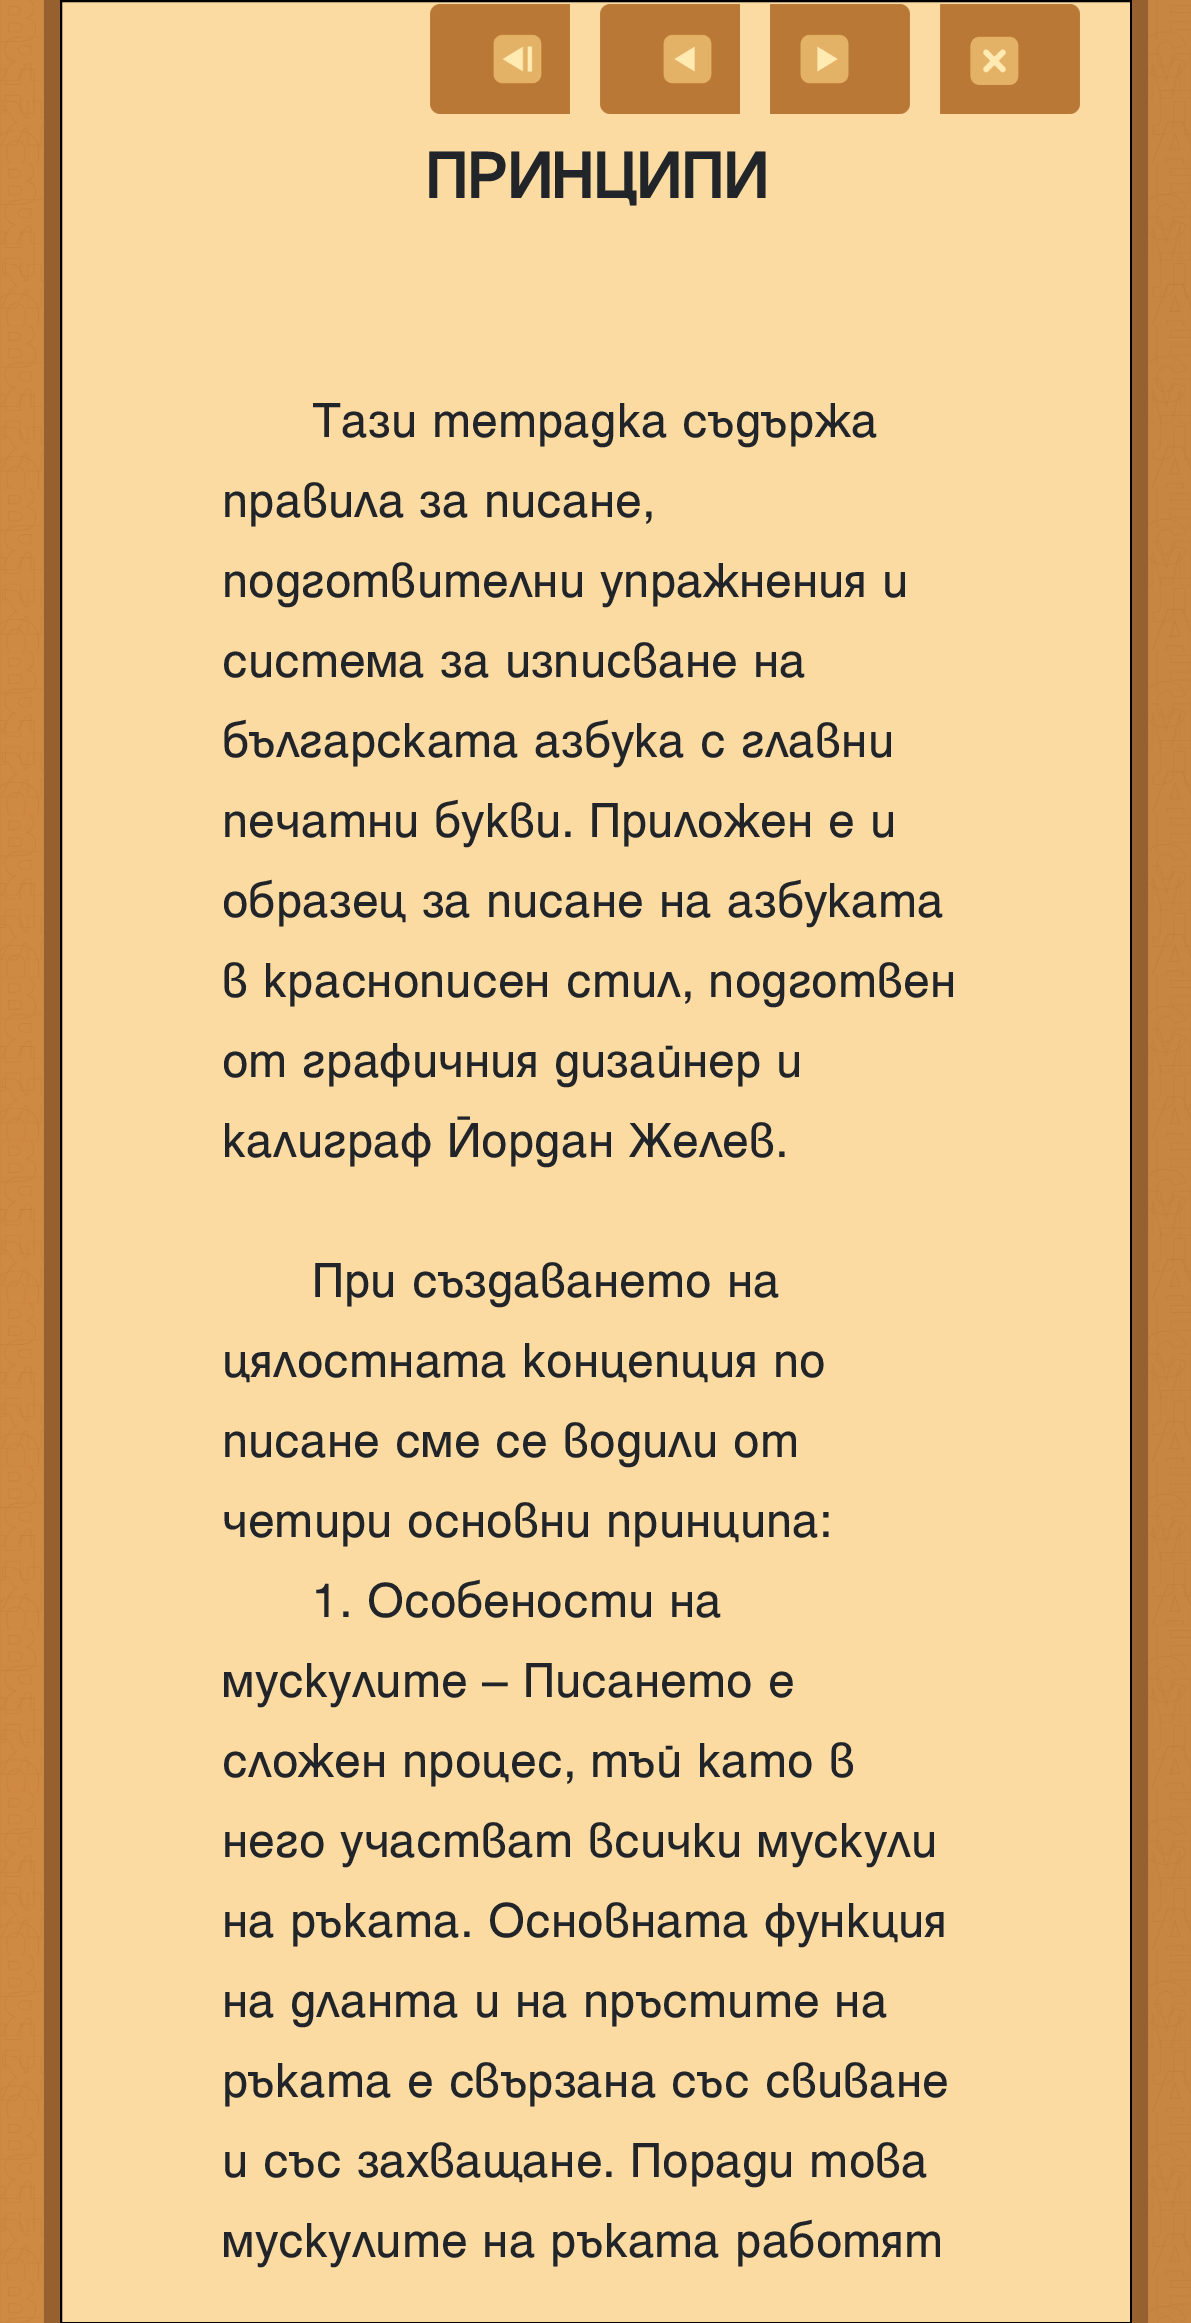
%!PS-Adobe-3.0
%%BoundingBox: 0 0 1191 2323
%%LanguageLevel: 3
%%Pages: 1
%%EndComments
%%BeginProlog
/drawimage { 5 dict begin { /h /w /y /x /name } { exch def } forall
  gsave x y translate w h scale
  w h 8 [w 0 0 h 0 0] name (r) file false 3 colorimage grestore end } def
%%EndProlog
%%BeginSetup
<< /PageSize [1191 2323] >> setpagedevice
%%EndSetup
%%Page: 1 1
0 2323 translate 1 -1 scale
4 setmiterlimit
1 setgray
0 0 1191 2323 rectfill
(images/1.raw) 0 0 44 2323 drawimage
0.588 0.38 0.18 setrgbcolor
44 0 16 2323 rectfill
0.984 0.859 0.635 setrgbcolor
newpath 61 1 moveto 1131 1 lineto 1131 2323 lineto 61 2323 lineto closepath gsave fill grestore
0 setgray
2 setlinewidth
stroke
0.729 0.471 0.212 setrgbcolor
newpath 440 4 moveto 570 4 lineto 570 114 lineto 440 114 lineto 434.5 114 430 109.5 430 104 curveto 430 14 lineto 430 8.5 434.5 4 440 4 curveto closepath fill
(images/2.raw) 430 4 140 110 drawimage
newpath 610 4 moveto 740 4 lineto 740 114 lineto 610 114 lineto 604.5 114 600 109.5 600 104 curveto 600 14 lineto 600 8.5 604.5 4 610 4 curveto closepath fill
(images/3.raw) 600 4 140 110 drawimage
(images/4.raw) 1148 0 43 2323 drawimage
0.588 0.38 0.18 setrgbcolor
1132 0 16 2323 rectfill
0.729 0.471 0.212 setrgbcolor
newpath 770 4 moveto 900 4 lineto 905.5 4 910 8.5 910 14 curveto 910 104 lineto 910 109.5 905.5 114 900 114 curveto 770 114 lineto closepath fill
(images/5.raw) 770 4 140 110 drawimage
newpath 940 4 moveto 1070 4 lineto 1075.5 4 1080 8.5 1080 14 curveto 1080 104 lineto 1080 109.5 1075.5 114 1070 114 curveto 940 114 lineto closepath fill
(images/6.raw) 940 4 140 110 drawimage
/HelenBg-Bold [69.5 0 0 -69.5 0 0] selectfont
0.129 0.145 0.161 setrgbcolor
425 198 moveto (ПРИНЦИПИ) show
/HelenBg-Regular [53.3 0 0 -53.3 0 0] selectfont
312 437 moveto (Тази тетрадка съдържа) show
222 517 moveto (правила за писане,) show
222 597 moveto (подготвителни упражнения и) show
222 677 moveto (система за изписване на) show
222 757 moveto (българската азбука с главни) show
222 837 moveto (печатни букви. Приложен е и) show
222 917 moveto (образец за писане на азбуката) show
222 997 moveto (в краснописен стил, подготвен) show
222 1077 moveto (от графичния дизайнер и) show
222 1157 moveto (калиграф Йордан Желев.) show
312 1297 moveto (При създаването на) show
222 1377 moveto (цялостната концепция по) show
222 1457 moveto (писане сме се водили от) show
222 1537 moveto (четири основни принципа:) show
312 1617 moveto (1. Особености на) show
222 1697 moveto (мускулите – Писането е) show
222 1777 moveto (сложен процес, тъй като в) show
222 1857 moveto (него участват всички мускули) show
222 1937 moveto (на ръката. Основната функция) show
222 2017 moveto (на дланта и на пръстите на) show
222 2097 moveto (ръката е свързана със свиване) show
222 2177 moveto (и със захващане. Поради това) show
222 2257 moveto (мускулите на ръката работят) show
showpage
%%EOF
